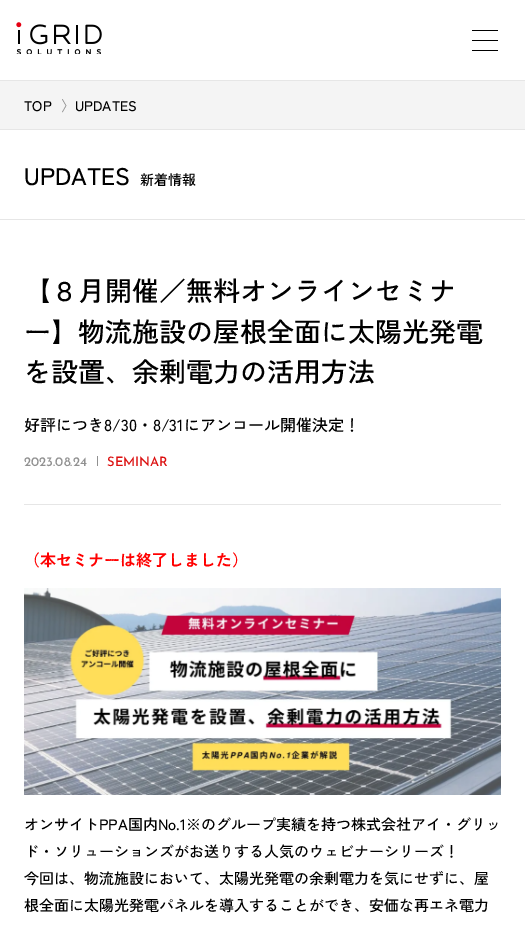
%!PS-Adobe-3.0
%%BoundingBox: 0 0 525 928
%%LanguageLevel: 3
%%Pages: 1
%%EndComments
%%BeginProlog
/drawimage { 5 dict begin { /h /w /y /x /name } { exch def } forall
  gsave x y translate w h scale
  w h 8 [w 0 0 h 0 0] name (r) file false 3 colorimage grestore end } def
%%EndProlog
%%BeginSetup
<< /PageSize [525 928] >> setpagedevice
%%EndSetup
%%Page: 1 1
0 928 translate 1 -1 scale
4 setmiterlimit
1 setgray
0 0 525 928 rectfill
(images/1.raw) 16 22 86 32 drawimage
0 setgray
472 30 26 1 rectfill
472 40 26 1 rectfill
472 50 26 1 rectfill
0.902 setgray
0 80 525 1 rectfill
0.957 setgray
0 81 525 48 rectfill
0.902 setgray
0 129 525 1 rectfill
0 219 525 1 rectfill
24 504 477 1 rectfill
0.565 setgray
97 456 1 10 rectfill
(images/2.raw) 24 588 477 207 drawimage
/ZenKakuGothicNew-Medium [14 0 0 -14 0 0] selectfont
0 setgray
24 111 moveto (TOP) show
0.565 setgray
61 111 moveto (〉) show
0 setgray
75 111 moveto (UPDATES) show
/ZenKakuGothicNew-Medium [24 0 0 -24 0 0] selectfont
24 185 moveto (UPDATES) show
/ZenKakuGothicNew-Medium [14 0 0 -14 0 0] selectfont
140 185 moveto (新着情報) show
/ZenKakuGothicNew-Medium [27 0 0 -27 0 0] selectfont
24 301 moveto (【８月開催／無料オンラインセミナ) show
24 342 moveto (ー】物流施設の屋根全面に太陽光発電) show
24 382 moveto (を設置、余剰電力の活用方法) show
/ZenKakuGothicNew-Medium [16 0 0 -16 0 0] selectfont
24 431 moveto (好評につき8/30・8/31にアンコール開催決定！) show
/JosefinSans-Medium [13 0 0 -13 0 0] selectfont
0.565 setgray
24 466 moveto (2023.08.24) show
0.863 0.063 0.063 setrgbcolor
107 466 moveto (SEMINAR) show
/ZenKakuGothicNew-Bold [16 0 0 -16 0 0] selectfont
1 0 0 setrgbcolor
24 566 moveto (（本セミナーは終了しました）) show
/ZenKakuGothicNew-Medium [15 0 0 -15 0 0] selectfont
0 setgray
24 830 moveto (オンサイトPPA国内No.1※のグループ実績を持つ株式会社アイ・グリッ) show
24 857 moveto (ド・ソリューションズがお送りする人気のウェビナーシリーズ！) show
24 884 moveto (今回は、物流施設において、太陽光発電の余剰電力を気にせずに、屋) show
24 911 moveto (根全面に太陽光発電パネルを導入することができ、安価な再エネ電力) show
showpage
%%EOF
